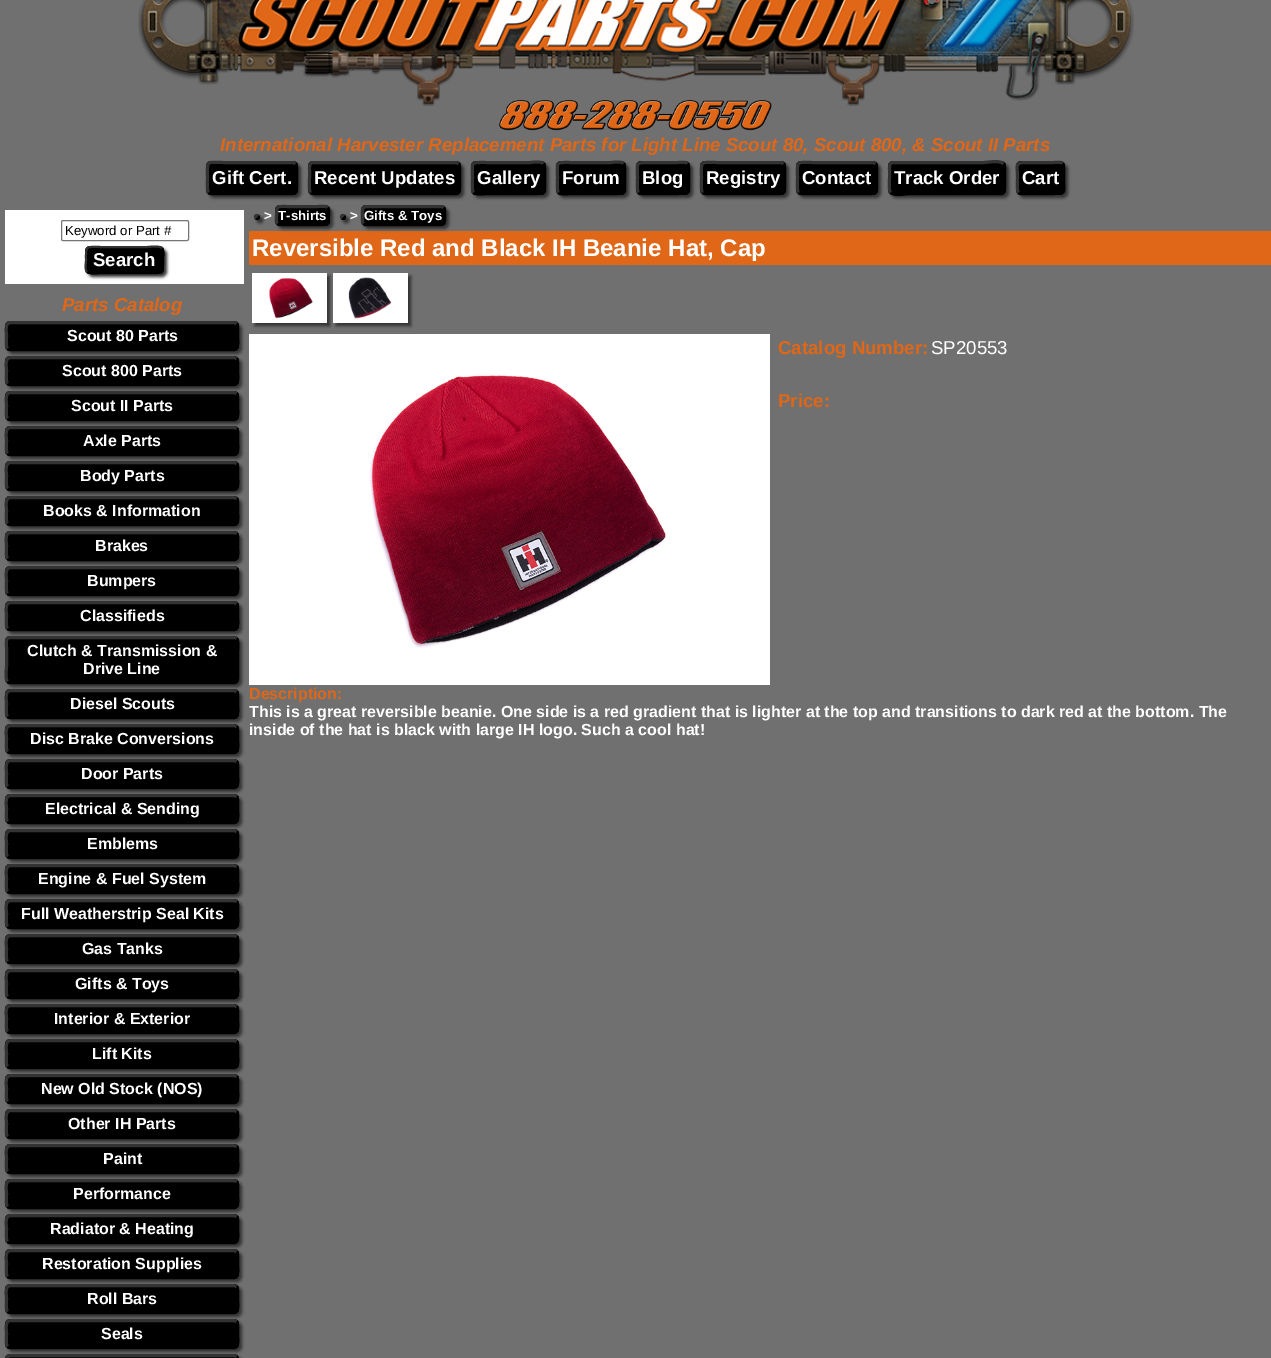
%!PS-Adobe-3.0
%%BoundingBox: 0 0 1271 1358
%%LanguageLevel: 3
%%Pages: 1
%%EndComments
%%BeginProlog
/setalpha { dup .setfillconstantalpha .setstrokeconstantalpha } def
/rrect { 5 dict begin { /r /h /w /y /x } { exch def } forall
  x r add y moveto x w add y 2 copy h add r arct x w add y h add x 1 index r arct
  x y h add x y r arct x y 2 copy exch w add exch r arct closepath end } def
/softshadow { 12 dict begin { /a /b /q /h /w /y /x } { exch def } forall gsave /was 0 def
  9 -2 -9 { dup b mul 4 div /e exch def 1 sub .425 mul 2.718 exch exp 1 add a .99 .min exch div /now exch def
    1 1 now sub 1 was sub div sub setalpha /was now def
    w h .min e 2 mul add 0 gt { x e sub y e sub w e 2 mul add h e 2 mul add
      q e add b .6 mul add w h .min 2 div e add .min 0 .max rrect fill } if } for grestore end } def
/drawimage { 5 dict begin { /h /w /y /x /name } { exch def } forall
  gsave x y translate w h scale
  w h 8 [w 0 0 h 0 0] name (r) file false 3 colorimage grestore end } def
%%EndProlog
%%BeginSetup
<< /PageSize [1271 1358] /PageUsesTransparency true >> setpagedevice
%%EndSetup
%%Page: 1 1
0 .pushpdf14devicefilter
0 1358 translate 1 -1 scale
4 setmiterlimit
0.439 setgray
0 0 1271 1358 rectfill
(images/1.raw) 138 0 996 106 drawimage
(images/2.raw) 499 100 273 31 drawimage
0.2 setgray
209 164 92 34 5 1.5 1 softshadow
0 setgray
206 161 92 34 5 rrect fill
3 setlinewidth
newpath 295.5 163.5 moveto 297.5 166 296.5 175 296.5 178 curveto 296.5 196.5 299 193.5 279.5 193.5 curveto 211 193.5 lineto 208.5 192.5 lineto stroke
0.2 setgray
newpath 208.5 192.5 moveto 206.5 190 207.5 181 207.5 178 curveto 207.5 159.5 205 162.5 224.5 162.5 curveto 293 162.5 lineto 295.5 163.5 lineto stroke
311 164 153 34 5 1.5 1 softshadow
0 setgray
308 161 153 34 5 rrect fill
newpath 458.5 163.5 moveto 460.5 166 459.5 175 459.5 178 curveto 459.5 186 lineto 459.5 188.5 460 193.5 456 193.5 curveto 313 193.5 lineto 310.5 192.5 lineto stroke
0.2 setgray
newpath 310.5 192.5 moveto 308.5 190 309.5 181 309.5 178 curveto 309.5 170 lineto 309.5 167.5 309 162.5 313 162.5 curveto 456 162.5 lineto 458.5 163.5 lineto stroke
474 164 75 34 5 1.5 1 softshadow
0 setgray
471 161 75 34 5 rrect fill
newpath 543.5 163.5 moveto 545.5 166 544.5 175 544.5 178 curveto 544.5 195 547.5 193.5 530 193.5 curveto 487 193.5 lineto 486 193.5 476 195 473.5 192.5 curveto stroke
0.2 setgray
newpath 473.5 192.5 moveto 471.5 190 472.5 181 472.5 178 curveto 472.5 161 469.5 162.5 487 162.5 curveto 530 162.5 lineto 531 162.5 541 161 543.5 163.5 curveto stroke
559 164 70 34 5 1.5 1 softshadow
0 setgray
556 161 70 34 5 rrect fill
newpath 623.5 163.5 moveto 625.5 166 624.5 175 624.5 178 curveto 624.5 195 627.5 193.5 611 193.5 curveto 571 193.5 lineto 569.5 193.5 561 195 558.5 192.5 curveto stroke
0.2 setgray
newpath 558.5 192.5 moveto 556.5 190 557.5 181 557.5 178 curveto 557.5 161 554.5 162.5 571 162.5 curveto 611 162.5 lineto 612.5 162.5 621 161 623.5 163.5 curveto stroke
639 164 54 34 5 1.5 1 softshadow
0 setgray
636 161 54 34 5 rrect fill
newpath 687.5 163.5 moveto 689.5 166 688.5 175 688.5 178 curveto 688.5 193 691.5 193.5 677.5 193.5 curveto 648.5 193.5 lineto 647 193.5 640.5 194.5 638.5 192.5 curveto stroke
0.2 setgray
newpath 638.5 192.5 moveto 636.5 190 637.5 181 637.5 178 curveto 637.5 163 634.5 162.5 648.5 162.5 curveto 677.5 162.5 lineto 679 162.5 685.5 161.5 687.5 163.5 curveto stroke
703 164 86 34 5 1.5 1 softshadow
0 setgray
700 161 86 34 5 rrect fill
newpath 783.5 163.5 moveto 785.5 166 784.5 175 784.5 178 curveto 784.5 196 787 193.5 768.5 193.5 curveto 705 193.5 lineto 702.5 192.5 lineto stroke
0.2 setgray
newpath 702.5 192.5 moveto 700.5 190 701.5 181 701.5 178 curveto 701.5 160 699 162.5 717.5 162.5 curveto 781 162.5 lineto 783.5 163.5 lineto stroke
799 164 82 34 5 1.5 1 softshadow
0 setgray
796 161 82 34 5 rrect fill
newpath 875.5 163.5 moveto 877.5 166 876.5 175 876.5 178 curveto 876.5 196 879 193.5 861 193.5 curveto 801 193.5 lineto 798.5 192.5 lineto stroke
0.2 setgray
newpath 798.5 192.5 moveto 796.5 190 797.5 181 797.5 178 curveto 797.5 160 795 162.5 813 162.5 curveto 873 162.5 lineto 875.5 163.5 lineto stroke
891 164 118 34 5 1.5 1 softshadow
0 setgray
888 161 118 34 5 rrect fill
newpath 1003.5 163.5 moveto 1005.5 166 1004.5 175 1004.5 178 curveto 1004.5 186 lineto 1004.5 188.5 1005 193.5 1001 193.5 curveto 911 193.5 lineto 904.5 193.5 897 196 891.5 193 curveto 890.5 192.5 lineto stroke
0.2 setgray
newpath 890.5 192.5 moveto 888.5 190 889.5 181 889.5 178 curveto 889.5 170 lineto 889.5 167.5 889 162.5 893 162.5 curveto 983 162.5 lineto 989.5 162.5 997 160 1002.5 163 curveto 1003.5 163.5 lineto stroke
1019 164 49 34 5 1.5 1 softshadow
0 setgray
1016 161 49 34 5 rrect fill
newpath 1062.5 163.5 moveto 1064.5 166 1063.5 175 1063.5 178 curveto 1063.5 192 1067 193.5 1053.5 193.5 curveto 1027.5 193.5 lineto 1026 193.5 1020.5 194.5 1018.5 192.5 curveto stroke
0.2 setgray
newpath 1018.5 192.5 moveto 1016.5 190 1017.5 181 1017.5 178 curveto 1017.5 164 1014 162.5 1027.5 162.5 curveto 1053.5 162.5 lineto 1055 162.5 1060.5 161.5 1062.5 163.5 curveto stroke
1 setgray
5 210 239 74 rectfill
0.463 setgray
1 setlinewidth
61.5 220.5 127 20 1.5 rrect stroke
0.2 setgray
88 249 79 28 5 1.5 1 softshadow
0 setgray
85 246 79 28 5 rrect fill
2 setlinewidth
newpath 162 248 moveto 164.5 250.5 163 257 163 260 curveto 163 275 164 273 147.5 273 curveto 101.5 273 lineto 100 273 90 274.5 87 272 curveto stroke
0.2 setgray
newpath 87 272 moveto 84.5 269.5 86 263 86 260 curveto 86 245 85 247 101.5 247 curveto 147.5 247 lineto 149 247 159 245.5 162 248 curveto stroke
8 324 234 30 5 1.5 1 softshadow
0 setgray
5 321 234 30 5 rrect fill
3 setlinewidth
newpath 236.5 323.5 moveto 238.5 326 237.5 333.5 237.5 336 curveto 237.5 339 239 346.5 236 348.5 curveto 234.5 349.5 lineto 10 349.5 lineto 7.5 348.5 lineto stroke
0.2 setgray
newpath 7.5 348.5 moveto 5.5 346 6.5 338.5 6.5 336 curveto 6.5 333 5 325.5 8 323.5 curveto 9.5 322.5 lineto 234 322.5 lineto 236.5 323.5 lineto stroke
8 359 234 30 5 1.5 1 softshadow
0 setgray
5 356 234 30 5 rrect fill
newpath 236.5 358.5 moveto 238.5 361 237.5 368.5 237.5 371 curveto 237.5 374 239 381.5 236 383.5 curveto 234.5 384.5 lineto 10 384.5 lineto 7.5 383.5 lineto stroke
0.2 setgray
newpath 7.5 383.5 moveto 5.5 381 6.5 373.5 6.5 371 curveto 6.5 368 5 360.5 8 358.5 curveto 9.5 357.5 lineto 234 357.5 lineto 236.5 358.5 lineto stroke
8 394 234 30 5 1.5 1 softshadow
0 setgray
5 391 234 30 5 rrect fill
newpath 236.5 393.5 moveto 238.5 396 237.5 403.5 237.5 406 curveto 237.5 409 239 416.5 236 418.5 curveto 234.5 419.5 lineto 10 419.5 lineto 7.5 418.5 lineto stroke
0.2 setgray
newpath 7.5 418.5 moveto 5.5 416 6.5 408.5 6.5 406 curveto 6.5 403 5 395.5 8 393.5 curveto 9.5 392.5 lineto 234 392.5 lineto 236.5 393.5 lineto stroke
8 429 234 30 5 1.5 1 softshadow
0 setgray
5 426 234 30 5 rrect fill
newpath 236.5 428.5 moveto 238.5 431 237.5 438.5 237.5 441 curveto 237.5 444 239 451.5 236 453.5 curveto 234.5 454.5 lineto 10 454.5 lineto 7.5 453.5 lineto stroke
0.2 setgray
newpath 7.5 453.5 moveto 5.5 451 6.5 443.5 6.5 441 curveto 6.5 438 5 430.5 8 428.5 curveto 9.5 427.5 lineto 234 427.5 lineto 236.5 428.5 lineto stroke
8 464 234 30 5 1.5 1 softshadow
0 setgray
5 461 234 30 5 rrect fill
newpath 236.5 463.5 moveto 238.5 466 237.5 473.5 237.5 476 curveto 237.5 479 239 486.5 236 488.5 curveto 234.5 489.5 lineto 10 489.5 lineto 7.5 488.5 lineto stroke
0.2 setgray
newpath 7.5 488.5 moveto 5.5 486 6.5 478.5 6.5 476 curveto 6.5 473 5 465.5 8 463.5 curveto 9.5 462.5 lineto 234 462.5 lineto 236.5 463.5 lineto stroke
8 499 234 30 5 1.5 1 softshadow
0 setgray
5 496 234 30 5 rrect fill
newpath 236.5 498.5 moveto 238.5 501 237.5 508.5 237.5 511 curveto 237.5 514 239 521.5 236 523.5 curveto 234.5 524.5 lineto 10 524.5 lineto 7.5 523.5 lineto stroke
0.2 setgray
newpath 7.5 523.5 moveto 5.5 521 6.5 513.5 6.5 511 curveto 6.5 508 5 500.5 8 498.5 curveto 9.5 497.5 lineto 234 497.5 lineto 236.5 498.5 lineto stroke
8 534 234 30 5 1.5 1 softshadow
0 setgray
5 531 234 30 5 rrect fill
newpath 236.5 533.5 moveto 238.5 536 237.5 543.5 237.5 546 curveto 237.5 549 239 556.5 236 558.5 curveto 234.5 559.5 lineto 10 559.5 lineto 7.5 558.5 lineto stroke
0.2 setgray
newpath 7.5 558.5 moveto 5.5 556 6.5 548.5 6.5 546 curveto 6.5 543 5 535.5 8 533.5 curveto 9.5 532.5 lineto 234 532.5 lineto 236.5 533.5 lineto stroke
8 569 234 30 5 1.5 1 softshadow
0 setgray
5 566 234 30 5 rrect fill
newpath 236.5 568.5 moveto 238.5 571 237.5 578.5 237.5 581 curveto 237.5 584 239 591.5 236 593.5 curveto 234.5 594.5 lineto 10 594.5 lineto 7.5 593.5 lineto stroke
0.2 setgray
newpath 7.5 593.5 moveto 5.5 591 6.5 583.5 6.5 581 curveto 6.5 578 5 570.5 8 568.5 curveto 9.5 567.5 lineto 234 567.5 lineto 236.5 568.5 lineto stroke
8 604 234 30 5 1.5 1 softshadow
0 setgray
5 601 234 30 5 rrect fill
newpath 236.5 603.5 moveto 238.5 606 237.5 613.5 237.5 616 curveto 237.5 619 239 626.5 236 628.5 curveto 234.5 629.5 lineto 10 629.5 lineto 7.5 628.5 lineto stroke
0.2 setgray
newpath 7.5 628.5 moveto 5.5 626 6.5 618.5 6.5 616 curveto 6.5 613 5 605.5 8 603.5 curveto 9.5 602.5 lineto 234 602.5 lineto 236.5 603.5 lineto stroke
8 639 234 48 5 1.5 1 softshadow
0 setgray
5 636 234 48 5 rrect fill
newpath 236.5 638.5 moveto 239 641 237.5 651 237.5 653.5 curveto 237.5 672.5 lineto 237.5 675 239 682.5 234 682.5 curveto 9 682.5 lineto 7.5 681.5 lineto stroke
0.2 setgray
newpath 7.5 681.5 moveto 5 679 6.5 669 6.5 666.5 curveto 6.5 647.5 lineto 6.5 645 5 637.5 10 637.5 curveto 235 637.5 lineto 236.5 638.5 lineto stroke
8 692 234 30 5 1.5 1 softshadow
0 setgray
5 689 234 30 5 rrect fill
newpath 236.5 691.5 moveto 238.5 694 237.5 701.5 237.5 704 curveto 237.5 707 239 714.5 236 716.5 curveto 234.5 717.5 lineto 10 717.5 lineto 7.5 716.5 lineto stroke
0.2 setgray
newpath 7.5 716.5 moveto 5.5 714 6.5 706.5 6.5 704 curveto 6.5 701 5 693.5 8 691.5 curveto 9.5 690.5 lineto 234 690.5 lineto 236.5 691.5 lineto stroke
8 727 234 30 5 1.5 1 softshadow
0 setgray
5 724 234 30 5 rrect fill
newpath 236.5 726.5 moveto 238.5 729 237.5 736.5 237.5 739 curveto 237.5 742 239 749.5 236 751.5 curveto 234.5 752.5 lineto 10 752.5 lineto 7.5 751.5 lineto stroke
0.2 setgray
newpath 7.5 751.5 moveto 5.5 749 6.5 741.5 6.5 739 curveto 6.5 736 5 728.5 8 726.5 curveto 9.5 725.5 lineto 234 725.5 lineto 236.5 726.5 lineto stroke
8 762 234 30 5 1.5 1 softshadow
0 setgray
5 759 234 30 5 rrect fill
newpath 236.5 761.5 moveto 238.5 764 237.5 771.5 237.5 774 curveto 237.5 777 239 784.5 236 786.5 curveto 234.5 787.5 lineto 10 787.5 lineto 7.5 786.5 lineto stroke
0.2 setgray
newpath 7.5 786.5 moveto 5.5 784 6.5 776.5 6.5 774 curveto 6.5 771 5 763.5 8 761.5 curveto 9.5 760.5 lineto 234 760.5 lineto 236.5 761.5 lineto stroke
8 797 234 30 5 1.5 1 softshadow
0 setgray
5 794 234 30 5 rrect fill
newpath 236.5 796.5 moveto 238.5 799 237.5 806.5 237.5 809 curveto 237.5 812 239 819.5 236 821.5 curveto 234.5 822.5 lineto 10 822.5 lineto 7.5 821.5 lineto stroke
0.2 setgray
newpath 7.5 821.5 moveto 5.5 819 6.5 811.5 6.5 809 curveto 6.5 806 5 798.5 8 796.5 curveto 9.5 795.5 lineto 234 795.5 lineto 236.5 796.5 lineto stroke
8 832 234 30 5 1.5 1 softshadow
0 setgray
5 829 234 30 5 rrect fill
newpath 236.5 831.5 moveto 238.5 834 237.5 841.5 237.5 844 curveto 237.5 847 239 854.5 236 856.5 curveto 234.5 857.5 lineto 10 857.5 lineto 7.5 856.5 lineto stroke
0.2 setgray
newpath 7.5 856.5 moveto 5.5 854 6.5 846.5 6.5 844 curveto 6.5 841 5 833.5 8 831.5 curveto 9.5 830.5 lineto 234 830.5 lineto 236.5 831.5 lineto stroke
8 867 234 30 5 1.5 1 softshadow
0 setgray
5 864 234 30 5 rrect fill
newpath 236.5 866.5 moveto 238.5 869 237.5 876.5 237.5 879 curveto 237.5 882 239 889.5 236 891.5 curveto 234.5 892.5 lineto 10 892.5 lineto 7.5 891.5 lineto stroke
0.2 setgray
newpath 7.5 891.5 moveto 5.5 889 6.5 881.5 6.5 879 curveto 6.5 876 5 868.5 8 866.5 curveto 9.5 865.5 lineto 234 865.5 lineto 236.5 866.5 lineto stroke
8 902 234 30 5 1.5 1 softshadow
0 setgray
5 899 234 30 5 rrect fill
newpath 236.5 901.5 moveto 238.5 904 237.5 911.5 237.5 914 curveto 237.5 917 239 924.5 236 926.5 curveto 234.5 927.5 lineto 10 927.5 lineto 7.5 926.5 lineto stroke
0.2 setgray
newpath 7.5 926.5 moveto 5.5 924 6.5 916.5 6.5 914 curveto 6.5 911 5 903.5 8 901.5 curveto 9.5 900.5 lineto 234 900.5 lineto 236.5 901.5 lineto stroke
8 937 234 30 5 1.5 1 softshadow
0 setgray
5 934 234 30 5 rrect fill
newpath 236.5 936.5 moveto 238.5 939 237.5 946.5 237.5 949 curveto 237.5 952 239 959.5 236 961.5 curveto 234.5 962.5 lineto 10 962.5 lineto 7.5 961.5 lineto stroke
0.2 setgray
newpath 7.5 961.5 moveto 5.5 959 6.5 951.5 6.5 949 curveto 6.5 946 5 938.5 8 936.5 curveto 9.5 935.5 lineto 234 935.5 lineto 236.5 936.5 lineto stroke
8 972 234 30 5 1.5 1 softshadow
0 setgray
5 969 234 30 5 rrect fill
newpath 236.5 971.5 moveto 238.5 974 237.5 981.5 237.5 984 curveto 237.5 987 239 994.5 236 996.5 curveto 234.5 997.5 lineto 10 997.5 lineto 7.5 996.5 lineto stroke
0.2 setgray
newpath 7.5 996.5 moveto 5.5 994 6.5 986.5 6.5 984 curveto 6.5 981 5 973.5 8 971.5 curveto 9.5 970.5 lineto 234 970.5 lineto 236.5 971.5 lineto stroke
8 1007 234 30 5 1.5 1 softshadow
0 setgray
5 1004 234 30 5 rrect fill
newpath 236.5 1006.5 moveto 238.5 1009 237.5 1016.5 237.5 1019 curveto 237.5 1022 239 1029.5 236 1031.5 curveto 234.5 1032.5 lineto 10 1032.5 lineto 7.5 1031.5 lineto stroke
0.2 setgray
newpath 7.5 1031.5 moveto 5.5 1029 6.5 1021.5 6.5 1019 curveto 6.5 1016 5 1008.5 8 1006.5 curveto 9.5 1005.5 lineto 234 1005.5 lineto 236.5 1006.5 lineto stroke
8 1042 234 30 5 1.5 1 softshadow
0 setgray
5 1039 234 30 5 rrect fill
newpath 236.5 1041.5 moveto 238.5 1044 237.5 1051.5 237.5 1054 curveto 237.5 1057 239 1064.5 236 1066.5 curveto 234.5 1067.5 lineto 10 1067.5 lineto 7.5 1066.5 lineto stroke
0.2 setgray
newpath 7.5 1066.5 moveto 5.5 1064 6.5 1056.5 6.5 1054 curveto 6.5 1051 5 1043.5 8 1041.5 curveto 9.5 1040.5 lineto 234 1040.5 lineto 236.5 1041.5 lineto stroke
8 1077 234 30 5 1.5 1 softshadow
0 setgray
5 1074 234 30 5 rrect fill
newpath 236.5 1076.5 moveto 238.5 1079 237.5 1086.5 237.5 1089 curveto 237.5 1092 239 1099.5 236 1101.5 curveto 234.5 1102.5 lineto 10 1102.5 lineto 7.5 1101.5 lineto stroke
0.2 setgray
newpath 7.5 1101.5 moveto 5.5 1099 6.5 1091.5 6.5 1089 curveto 6.5 1086 5 1078.5 8 1076.5 curveto 9.5 1075.5 lineto 234 1075.5 lineto 236.5 1076.5 lineto stroke
8 1112 234 30 5 1.5 1 softshadow
0 setgray
5 1109 234 30 5 rrect fill
newpath 236.5 1111.5 moveto 238.5 1114 237.5 1121.5 237.5 1124 curveto 237.5 1127 239 1134.5 236 1136.5 curveto 234.5 1137.5 lineto 10 1137.5 lineto 7.5 1136.5 lineto stroke
0.2 setgray
newpath 7.5 1136.5 moveto 5.5 1134 6.5 1126.5 6.5 1124 curveto 6.5 1121 5 1113.5 8 1111.5 curveto 9.5 1110.5 lineto 234 1110.5 lineto 236.5 1111.5 lineto stroke
8 1147 234 30 5 1.5 1 softshadow
0 setgray
5 1144 234 30 5 rrect fill
newpath 236.5 1146.5 moveto 238.5 1149 237.5 1156.5 237.5 1159 curveto 237.5 1162 239 1169.5 236 1171.5 curveto 234.5 1172.5 lineto 10 1172.5 lineto 7.5 1171.5 lineto stroke
0.2 setgray
newpath 7.5 1171.5 moveto 5.5 1169 6.5 1161.5 6.5 1159 curveto 6.5 1156 5 1148.5 8 1146.5 curveto 9.5 1145.5 lineto 234 1145.5 lineto 236.5 1146.5 lineto stroke
8 1182 234 30 5 1.5 1 softshadow
0 setgray
5 1179 234 30 5 rrect fill
newpath 236.5 1181.5 moveto 238.5 1184 237.5 1191.5 237.5 1194 curveto 237.5 1197 239 1204.5 236 1206.5 curveto 234.5 1207.5 lineto 10 1207.5 lineto 7.5 1206.5 lineto stroke
0.2 setgray
newpath 7.5 1206.5 moveto 5.5 1204 6.5 1196.5 6.5 1194 curveto 6.5 1191 5 1183.5 8 1181.5 curveto 9.5 1180.5 lineto 234 1180.5 lineto 236.5 1181.5 lineto stroke
8 1217 234 30 5 1.5 1 softshadow
0 setgray
5 1214 234 30 5 rrect fill
newpath 236.5 1216.5 moveto 238.5 1219 237.5 1226.5 237.5 1229 curveto 237.5 1232 239 1239.5 236 1241.5 curveto 234.5 1242.5 lineto 10 1242.5 lineto 7.5 1241.5 lineto stroke
0.2 setgray
newpath 7.5 1241.5 moveto 5.5 1239 6.5 1231.5 6.5 1229 curveto 6.5 1226 5 1218.5 8 1216.5 curveto 9.5 1215.5 lineto 234 1215.5 lineto 236.5 1216.5 lineto stroke
8 1252 234 30 5 1.5 1 softshadow
0 setgray
5 1249 234 30 5 rrect fill
newpath 236.5 1251.5 moveto 238.5 1254 237.5 1261.5 237.5 1264 curveto 237.5 1267 239 1274.5 236 1276.5 curveto 234.5 1277.5 lineto 10 1277.5 lineto 7.5 1276.5 lineto stroke
0.2 setgray
newpath 7.5 1276.5 moveto 5.5 1274 6.5 1266.5 6.5 1264 curveto 6.5 1261 5 1253.5 8 1251.5 curveto 9.5 1250.5 lineto 234 1250.5 lineto 236.5 1251.5 lineto stroke
8 1287 234 30 5 1.5 1 softshadow
0 setgray
5 1284 234 30 5 rrect fill
newpath 236.5 1286.5 moveto 238.5 1289 237.5 1296.5 237.5 1299 curveto 237.5 1302 239 1309.5 236 1311.5 curveto 234.5 1312.5 lineto 10 1312.5 lineto 7.5 1311.5 lineto stroke
0.2 setgray
newpath 7.5 1311.5 moveto 5.5 1309 6.5 1301.5 6.5 1299 curveto 6.5 1296 5 1288.5 8 1286.5 curveto 9.5 1285.5 lineto 234 1285.5 lineto 236.5 1286.5 lineto stroke
8 1322 234 30 5 1.5 1 softshadow
0 setgray
5 1319 234 30 5 rrect fill
newpath 236.5 1321.5 moveto 238.5 1324 237.5 1331.5 237.5 1334 curveto 237.5 1337 239 1344.5 236 1346.5 curveto 234.5 1347.5 lineto 10 1347.5 lineto 7.5 1346.5 lineto stroke
0.2 setgray
newpath 7.5 1346.5 moveto 5.5 1344 6.5 1336.5 6.5 1334 curveto 6.5 1331 5 1323.5 8 1321.5 curveto 9.5 1320.5 lineto 234 1320.5 lineto 236.5 1321.5 lineto stroke
8 1357 234 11 5 1.5 1 softshadow
0 setgray
5 1354 234 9 5 rrect fill
newpath 236.5 1356.5 moveto 238.5 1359 237.5 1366.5 237.5 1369 curveto 237.5 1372 239 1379.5 236 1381.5 curveto 234.5 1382.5 lineto 10 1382.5 lineto 7.5 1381.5 lineto stroke
0.2 setgray
newpath 7.5 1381.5 moveto 5.5 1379 6.5 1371.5 6.5 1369 curveto 6.5 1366 5 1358.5 8 1356.5 curveto 9.5 1355.5 lineto 234 1355.5 lineto 236.5 1356.5 lineto stroke
257 217 6 6 3 1.5 1 softshadow
0 setgray
newpath 258 216 moveto 259.5 217.5 257.5 219.5 256 218 curveto stroke
0.2 setgray
newpath 256 218 moveto 254.5 216.5 256.5 214.5 258 216 curveto stroke
0.875 0.404 0.09 setrgbcolor
249 231 1022 34 rectfill
0.2 setgray
278 208 55 21 5 1.5 1 softshadow
0 setgray
275 205 55 21 5 rrect fill
newpath 327.5 207.5 moveto 329.5 209.5 328.5 213 328.5 215.5 curveto 328.5 225.5 328.5 224.5 317.5 224.5 curveto 287.5 224.5 lineto 286 224.5 279.5 225.5 277.5 223.5 curveto stroke
0.2 setgray
newpath 277.5 223.5 moveto 275.5 221.5 276.5 218 276.5 215.5 curveto 276.5 205.5 276.5 206.5 287.5 206.5 curveto 317.5 206.5 lineto 319 206.5 325.5 205.5 327.5 207.5 curveto stroke
343 217 6 6 3 1.5 1 softshadow
0 setgray
newpath 344 216 moveto 345.5 217.5 343.5 219.5 342 218 curveto stroke
0.2 setgray
newpath 342 218 moveto 340.5 216.5 342.5 214.5 344 216 curveto stroke
364 208 85 21 5 1.5 1 softshadow
0 setgray
361 205 85 21 5 rrect fill
newpath 443.5 207.5 moveto 445 209 444.5 211.5 444.5 213.5 curveto 444.5 216.5 446 224.5 441 224.5 curveto 365 224.5 lineto 363.5 223.5 lineto stroke
0.2 setgray
newpath 363.5 223.5 moveto 362 222 362.5 219.5 362.5 217.5 curveto 362.5 214.5 361 206.5 366 206.5 curveto 442 206.5 lineto 443.5 207.5 lineto stroke
255 276 75 50 0 1.5 1 softshadow
(images/3.raw) 252 273 75 50 drawimage
336 276 75 50 0 1.5 1 softshadow
(images/4.raw) 333 273 75 50 drawimage
1 setgray
249 334 521 351 rectfill
(images/5.raw) 369 373 297 275 drawimage
/LiberationSans-BoldItalic [18.65 0 0 -18.65 0 0] selectfont
0.875 0.404 0.09 setrgbcolor
220 151 moveto (International Harvester Replacement Parts for Light Line Scout 80, Scout 800, & Scout II Parts) show
/LiberationSans-Bold [18.65 0 0 -18.65 0 0] selectfont
1 setgray
212 184 moveto (Gift Cert.) show
314 184 moveto (Recent Updates) show
477 184 moveto (Gallery) show
562 184 moveto (Forum) show
642 184 moveto (Blog) show
706 184 moveto (Registry) show
802 184 moveto (Contact) show
894 184 moveto (Track Order) show
1022 184 moveto (Cart) show
/LiberationSans-Regular [13.25 0 0 -13.25 0 0] selectfont
0 setgray
65 235 moveto (Keyword or Part #) show
/LiberationSans-Bold [18.65 0 0 -18.65 0 0] selectfont
1 setgray
93 266 moveto (Search) show
/LiberationSans-BoldItalic [18.65 0 0 -18.65 0 0] selectfont
0.875 0.404 0.09 setrgbcolor
62 311 moveto (Parts Catalog) show
/LiberationSans-Bold [16 0 0 -16 0 0] selectfont
1 setgray
67 341 moveto (Scout 80 Parts) show
62 376 moveto (Scout 800 Parts) show
71 411 moveto (Scout II Parts) show
83 446 moveto (Axle Parts) show
80 481 moveto (Body Parts) show
43 516 moveto (Books & Information) show
95 551 moveto (Brakes) show
87 586 moveto (Bumpers) show
80 621 moveto (Classifieds) show
27 656 moveto (Clutch & Transmission &) show
83 674 moveto (Drive Line) show
70 709 moveto (Diesel Scouts) show
30 744 moveto (Disc Brake Conversions) show
81 779 moveto (Door Parts) show
45 814 moveto (Electrical & Sending) show
87 849 moveto (Emblems) show
38 884 moveto (Engine & Fuel System) show
21 919 moveto (Full Weatherstrip Seal Kits) show
82 954 moveto (Gas Tanks) show
75 989 moveto (Gifts & Toys) show
54 1024 moveto (Interior & Exterior) show
92 1059 moveto (Lift Kits) show
41 1094 moveto (New Old Stock \(NOS\)) show
68 1129 moveto (Other IH Parts) show
103 1164 moveto (Paint) show
73 1199 moveto (Performance) show
50 1234 moveto (Radiator & Heating) show
42 1269 moveto (Restoration Supplies) show
87 1304 moveto (Roll Bars) show
101 1339 moveto (Seals) show
/LiberationSans-Bold [13.25 0 0 -13.25 0 0] selectfont
278 220 moveto (T-shirts) show
264 220 moveto (>) show
364 220 moveto (Gifts & Toys) show
350 220 moveto (>) show
/LiberationSans-Bold [24 0 0 -24 0 0] selectfont
252 256 moveto (Reversible Red and Black IH Beanie Hat, Cap) show
/LiberationSans-Bold [18.65 0 0 -18.65 0 0] selectfont
0.875 0.404 0.09 setrgbcolor
778 354 moveto (Catalog Number:) show
/LiberationSans-Regular [18.65 0 0 -18.65 0 0] selectfont
1 setgray
931 354 moveto (SP20553) show
/LiberationSans-Bold [18.65 0 0 -18.65 0 0] selectfont
0.875 0.404 0.09 setrgbcolor
778 407 moveto (Price:) show
/LiberationSans-Bold [16 0 0 -16 0 0] selectfont
249 699 moveto (Description:) show
1 setgray
249 717 moveto (This is a great reversible beanie. One side is a red gradient that is lighter at the top and transitions to dark red at the bottom. The) show
249 735 moveto (inside of the hat is black with large IH logo. Such a cool hat!) show
.poppdf14devicefilter showpage
%%EOF
